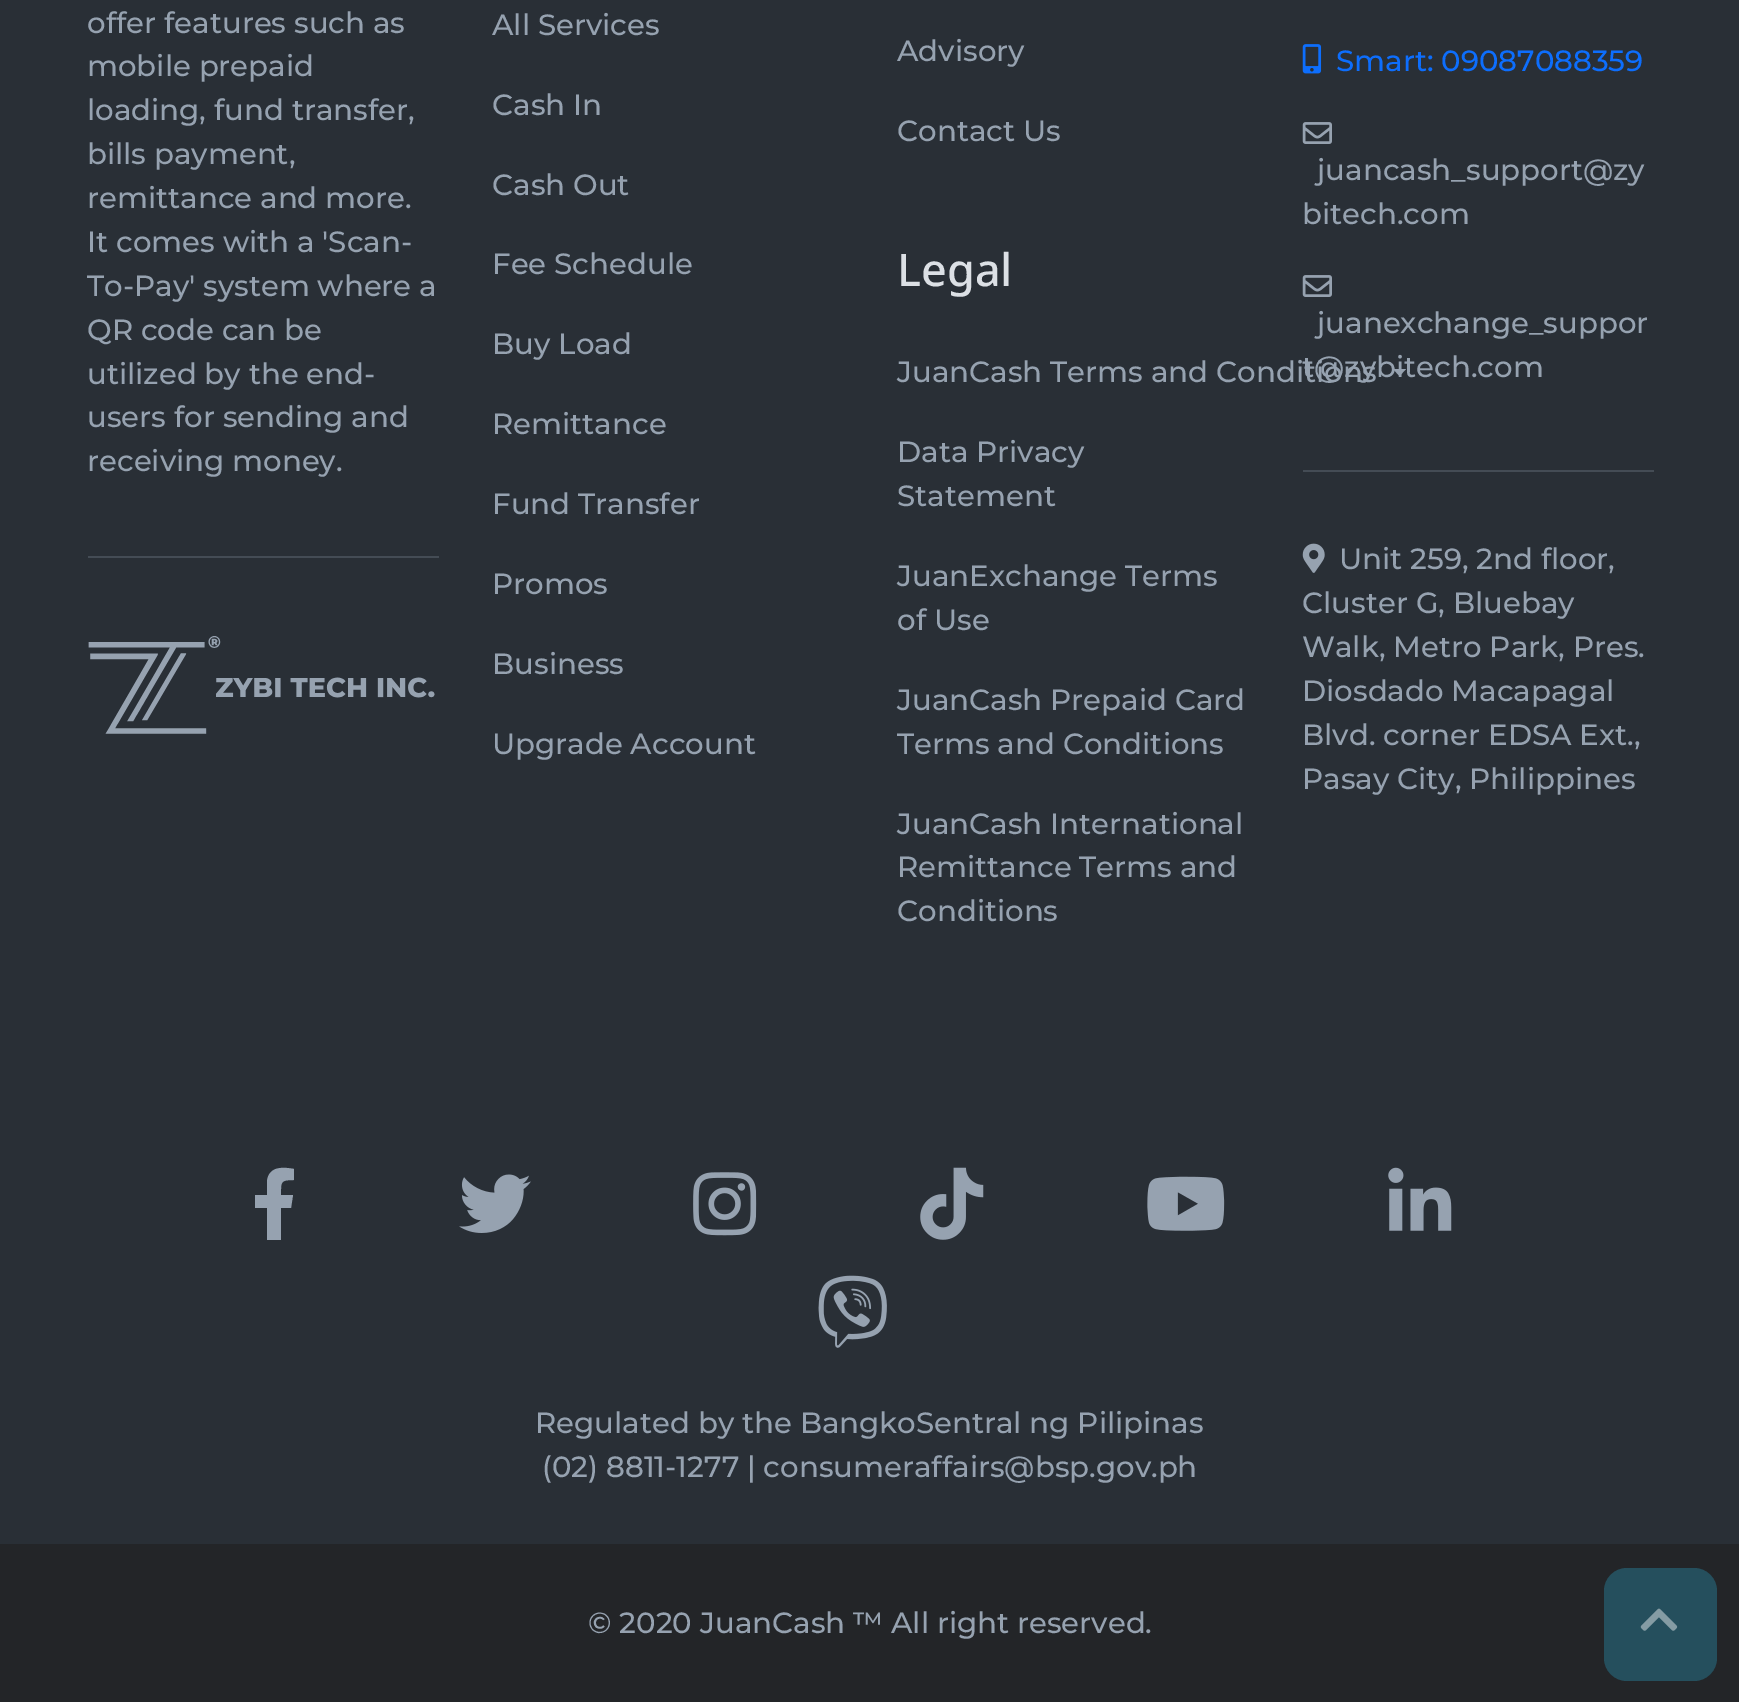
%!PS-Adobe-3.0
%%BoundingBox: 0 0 1739 1702
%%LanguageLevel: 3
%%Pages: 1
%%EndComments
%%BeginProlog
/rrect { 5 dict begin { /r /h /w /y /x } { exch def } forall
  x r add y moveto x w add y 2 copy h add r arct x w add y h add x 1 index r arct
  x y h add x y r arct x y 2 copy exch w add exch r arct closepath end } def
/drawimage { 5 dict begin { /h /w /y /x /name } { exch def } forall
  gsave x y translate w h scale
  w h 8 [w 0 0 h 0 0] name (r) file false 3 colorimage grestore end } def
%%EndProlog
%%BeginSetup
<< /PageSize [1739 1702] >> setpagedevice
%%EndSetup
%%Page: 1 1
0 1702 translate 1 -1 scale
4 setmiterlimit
0.161 0.184 0.212 setrgbcolor
0 0 1739 1702 rectfill
0.267 0.298 0.333 setrgbcolor
88 556 351 2 rectfill
(images/1.raw) 88 636 347 98 drawimage
0.588 0.635 0.69 setrgbcolor
newpath 1393 369 moveto 1406 369 lineto 1399.5 376 lineto closepath fill
(images/2.raw) 1302 44 20 30 drawimage
(images/3.raw) 1302 122 30 22 drawimage
(images/3.raw) 1302 275 30 22 drawimage
0.267 0.298 0.333 setrgbcolor
1303 470 351 2 rectfill
(images/4.raw) 1302 543 23 30 drawimage
0.588 0.635 0.69 setrgbcolor
newpath 291 1208 moveto 281 1208 lineto 281 1240 lineto 267 1240 lineto 267 1208 lineto 255 1208 lineto 255 1195 lineto 267 1195 lineto 267 1181 lineto 269 1166 283 1167 294 1169 curveto 294 1180 lineto 280 1180 281 1182 281 1195 curveto 293 1195 lineto closepath fill
(images/5.raw) 459 1174 72 59 drawimage
(images/6.raw) 693 1172 64 64 drawimage
(images/7.raw) 920 1167 64 73 drawimage
(images/8.raw) 1147 1176 78 55 drawimage
(images/9.raw) 1388 1167 64 64 drawimage
(images/10.raw) 818 1275 69 73 drawimage
0.137 0.145 0.157 setrgbcolor
0 1544 1739 158 rectfill
0.145 0.31 0.365 setrgbcolor
1604 1568 113 113 23 rrect fill
(images/11.raw) 1640 1608 38 23 drawimage
/Montserrat-Medium [29.25 0 0 -29.25 0 0] selectfont
0.588 0.635 0.69 setrgbcolor
87 33 moveto (offer features such as) show
87 76 moveto (mobile prepaid) show
87 120 moveto (loading, fund transfer,) show
87 164 moveto (bills payment,) show
87 208 moveto (remittance and more.) show
87 252 moveto (It comes with a 'Scan-) show
87 296 moveto (To-Pay' system where a) show
87 340 moveto (QR code can be) show
87 384 moveto (utilized by the end-) show
87 427 moveto (users for sending and) show
87 471 moveto (receiving money.) show
492 35 moveto (All Services) show
492 115 moveto (Cash In) show
492 195 moveto (Cash Out) show
492 274 moveto (Fee Schedule) show
492 354 moveto (Buy Load) show
492 434 moveto (Remittance) show
492 514 moveto (Fund Transfer) show
492 594 moveto (Promos) show
492 674 moveto (Business) show
492 754 moveto (Upgrade Account) show
897 61 moveto (Advisory) show
897 141 moveto (Contact Us) show
/NotoSans-Medium [45 0 0 -45 0 0] selectfont
0.863 0.878 0.898 setrgbcolor
897 286 moveto (Legal) show
/Montserrat-Medium [29.25 0 0 -29.25 0 0] selectfont
0.588 0.635 0.69 setrgbcolor
897 462 moveto (Data Privacy) show
897 506 moveto (Statement) show
897 586 moveto (JuanExchange Terms) show
897 630 moveto (of Use) show
897 710 moveto (JuanCash Prepaid Card) show
897 754 moveto (Terms and Conditions) show
897 834 moveto (JuanCash International) show
897 877 moveto (Remittance Terms and) show
897 921 moveto (Conditions) show
0.051 0.431 0.992 setrgbcolor
1336 71 moveto (Smart: 09087088359) show
0.588 0.635 0.69 setrgbcolor
1317 180 moveto (juancash_support@zy) show
1302 224 moveto (bitech.com) show
1317 333 moveto (juanexchange_suppor) show
1302 377 moveto (t@zybitech.com) show
897 382 moveto (JuanCash Terms and Conditions) show
1339 569 moveto (Unit 259, 2nd floor,) show
1302 613 moveto (Cluster G, Bluebay) show
1302 657 moveto (Walk, Metro Park, Pres.) show
1302 701 moveto (Diosdado Macapagal) show
1302 745 moveto (Blvd. corner EDSA Ext.,) show
1302 789 moveto (Pasay City, Philippines) show
535 1433 moveto (Regulated by the BangkoSentral ng Pilipinas) show
542 1477 moveto (\(02\) 8811-1277 | consumeraffairs@bsp.gov.ph) show
588 1633 moveto (© 2020 JuanCash ™ All right reserved.) show
showpage
%%EOF
